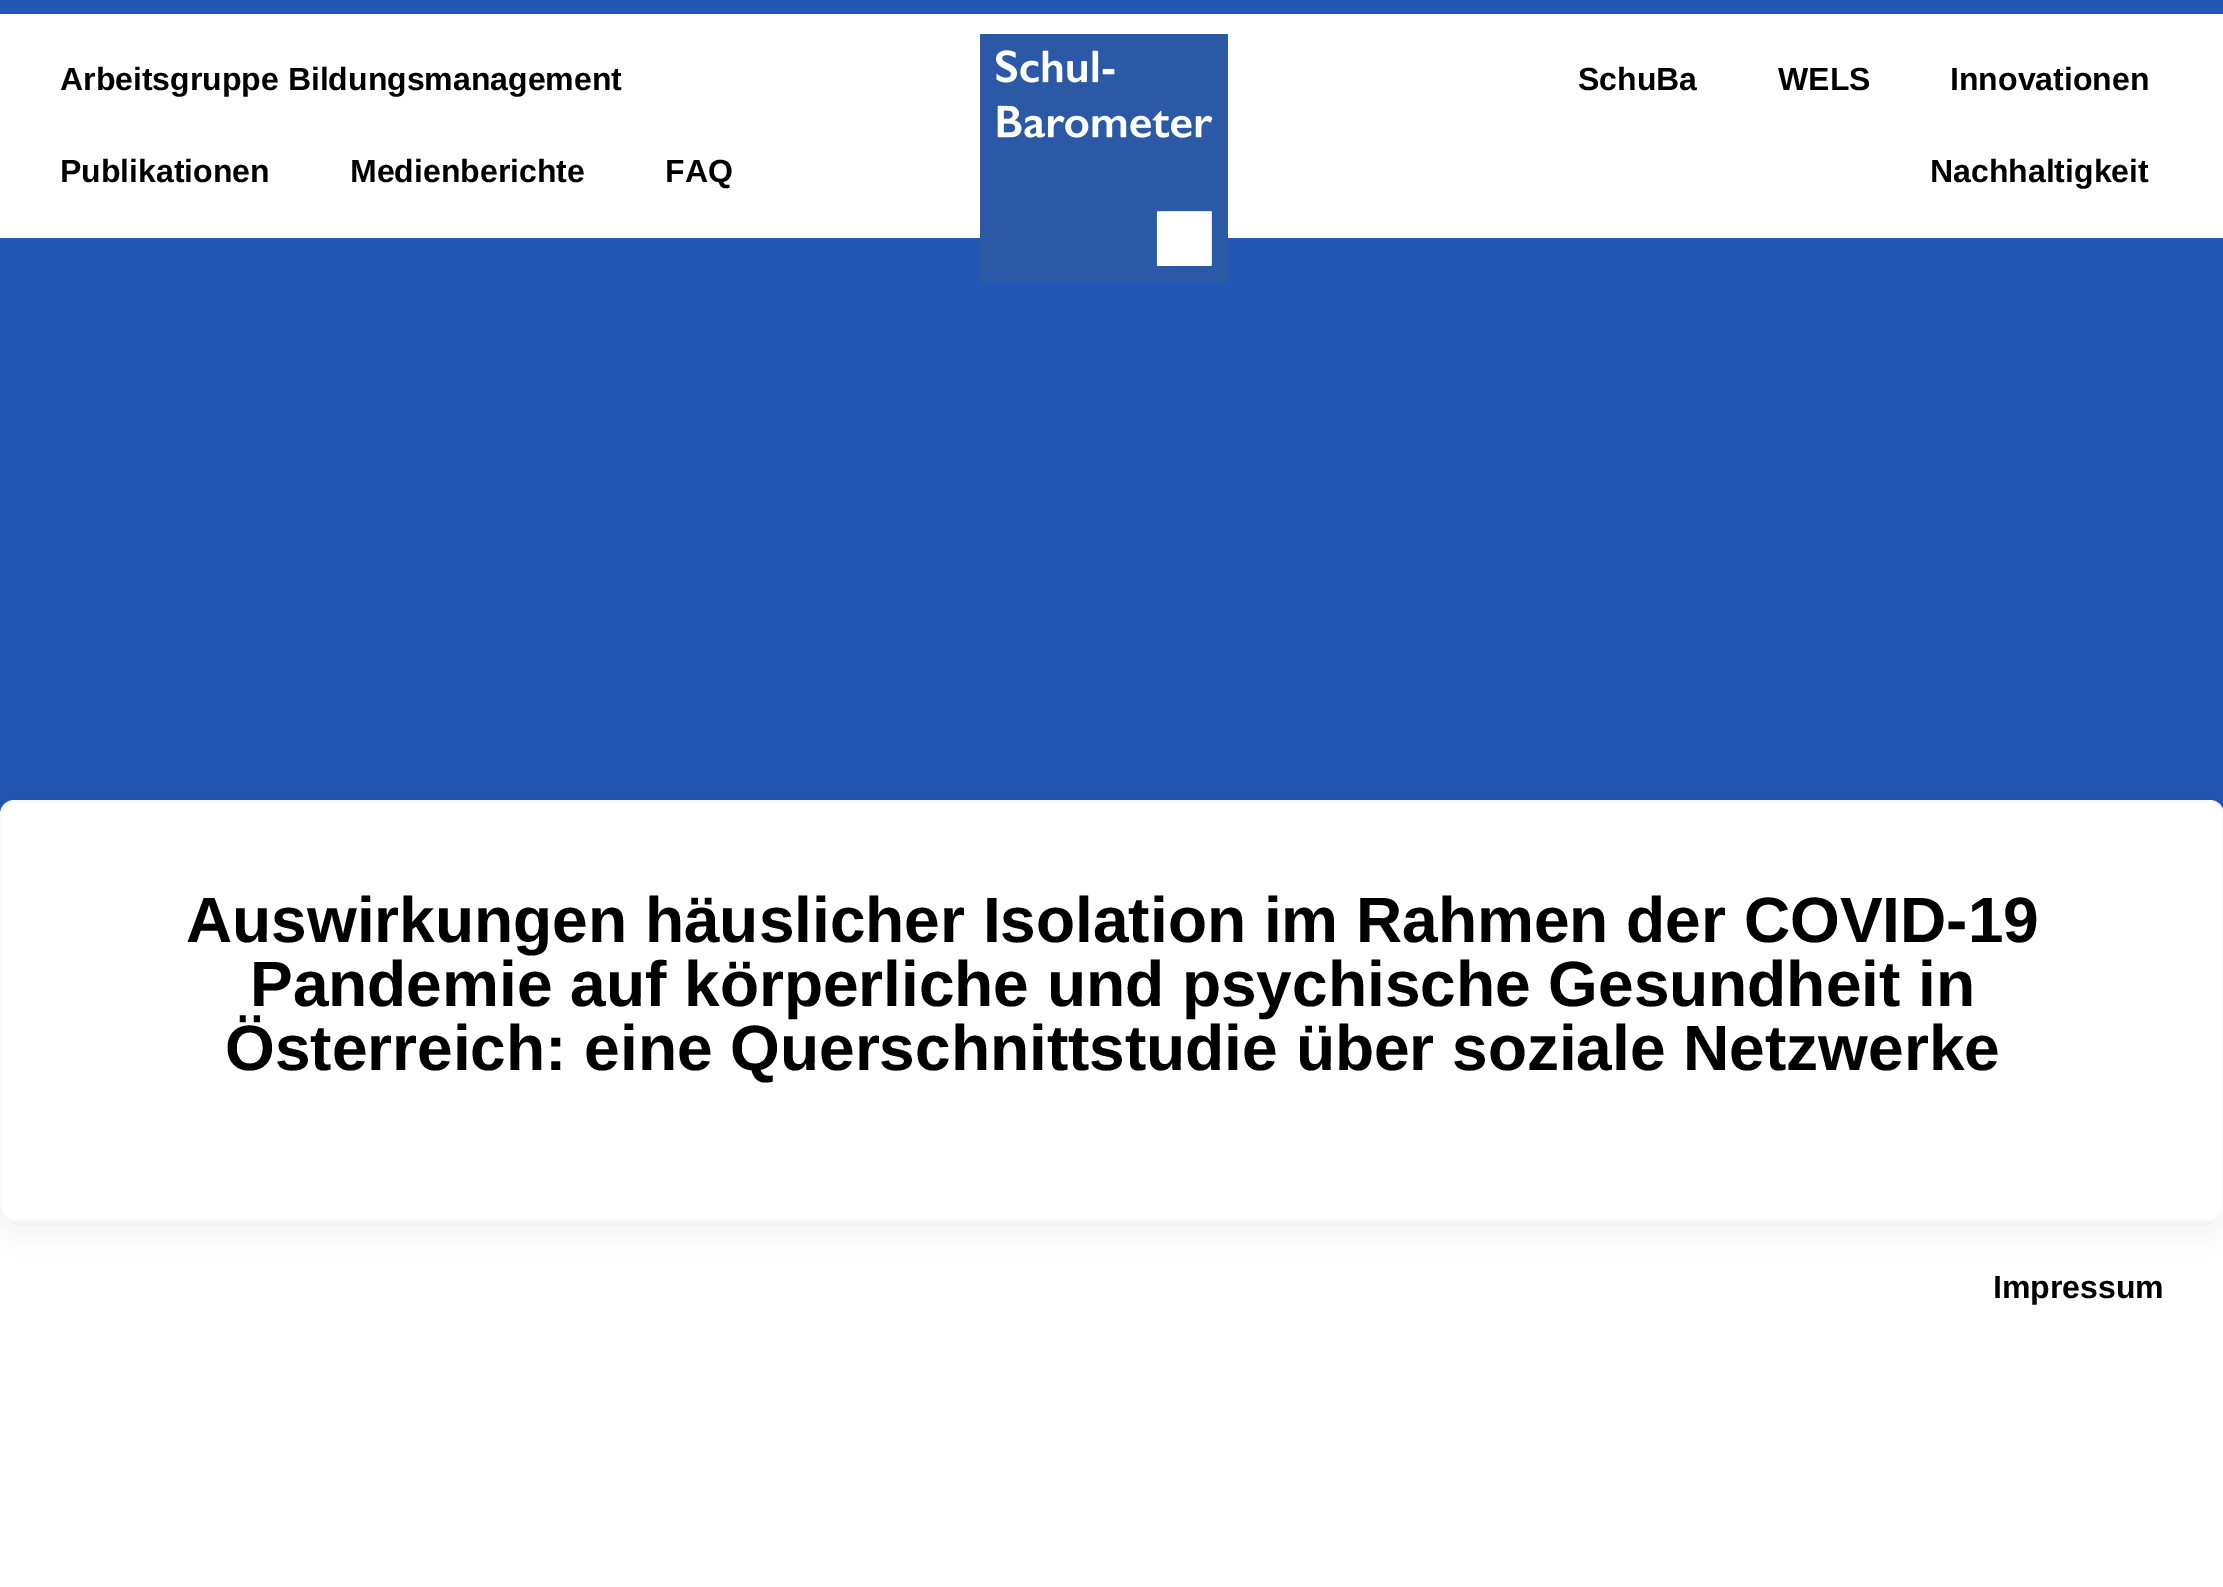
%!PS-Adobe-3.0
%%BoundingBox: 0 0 2223 1587
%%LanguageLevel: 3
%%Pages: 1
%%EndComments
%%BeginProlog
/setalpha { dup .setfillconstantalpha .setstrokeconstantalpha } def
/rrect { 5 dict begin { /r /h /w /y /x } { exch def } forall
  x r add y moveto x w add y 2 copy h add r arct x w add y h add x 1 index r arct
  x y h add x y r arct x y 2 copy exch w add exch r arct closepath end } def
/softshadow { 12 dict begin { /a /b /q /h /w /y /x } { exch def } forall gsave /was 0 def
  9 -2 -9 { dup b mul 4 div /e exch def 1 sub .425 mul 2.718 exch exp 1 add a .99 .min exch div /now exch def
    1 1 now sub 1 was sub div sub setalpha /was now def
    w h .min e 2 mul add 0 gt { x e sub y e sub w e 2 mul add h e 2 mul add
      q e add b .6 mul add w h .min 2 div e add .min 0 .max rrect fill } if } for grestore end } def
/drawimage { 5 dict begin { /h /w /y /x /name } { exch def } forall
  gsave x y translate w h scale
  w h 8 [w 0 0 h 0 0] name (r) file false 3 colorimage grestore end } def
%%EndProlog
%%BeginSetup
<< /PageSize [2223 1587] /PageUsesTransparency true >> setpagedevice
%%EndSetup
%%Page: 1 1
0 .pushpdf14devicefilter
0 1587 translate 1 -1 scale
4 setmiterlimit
1 setgray
0 0 2223 1587 rectfill
0.137 0.341 0.71 setrgbcolor
0 0 2223 14 rectfill
0 238 2223 576 rectfill
(images/1.raw) 980 34 248 248 drawimage
0 setgray
0 800 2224 422 14 17 0.09 softshadow
1 setgray
1 801 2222 420 13 rrect gsave fill grestore
0.969 setgray
2 setlinewidth
stroke
/LiberationSans-Bold [32 0 0 -32 0 0] selectfont
0 setgray
60 90 moveto (Arbeitsgruppe Bildungsmanagement) show
60 182 moveto (Publikationen) show
350 182 moveto (Medienberichte) show
665 182 moveto (FAQ) show
1578 90 moveto (SchuBa) show
1778 90 moveto (WELS) show
1950 90 moveto (Innovationen) show
1930 182 moveto (Nachhaltigkeit) show
/LiberationSans-Bold [64 0 0 -64 0 0] selectfont
186 942 moveto (Auswirkungen häuslicher Isolation im Rahmen der COVID-19) show
250 1006 moveto (Pandemie auf körperliche und psychische Gesundheit in) show
225 1070 moveto (Österreich: eine Querschnittstudie über soziale Netzwerke) show
/LiberationSans-Bold [32 0 0 -32 0 0] selectfont
1993 1298 moveto (Impressum) show
.poppdf14devicefilter showpage
%%EOF
